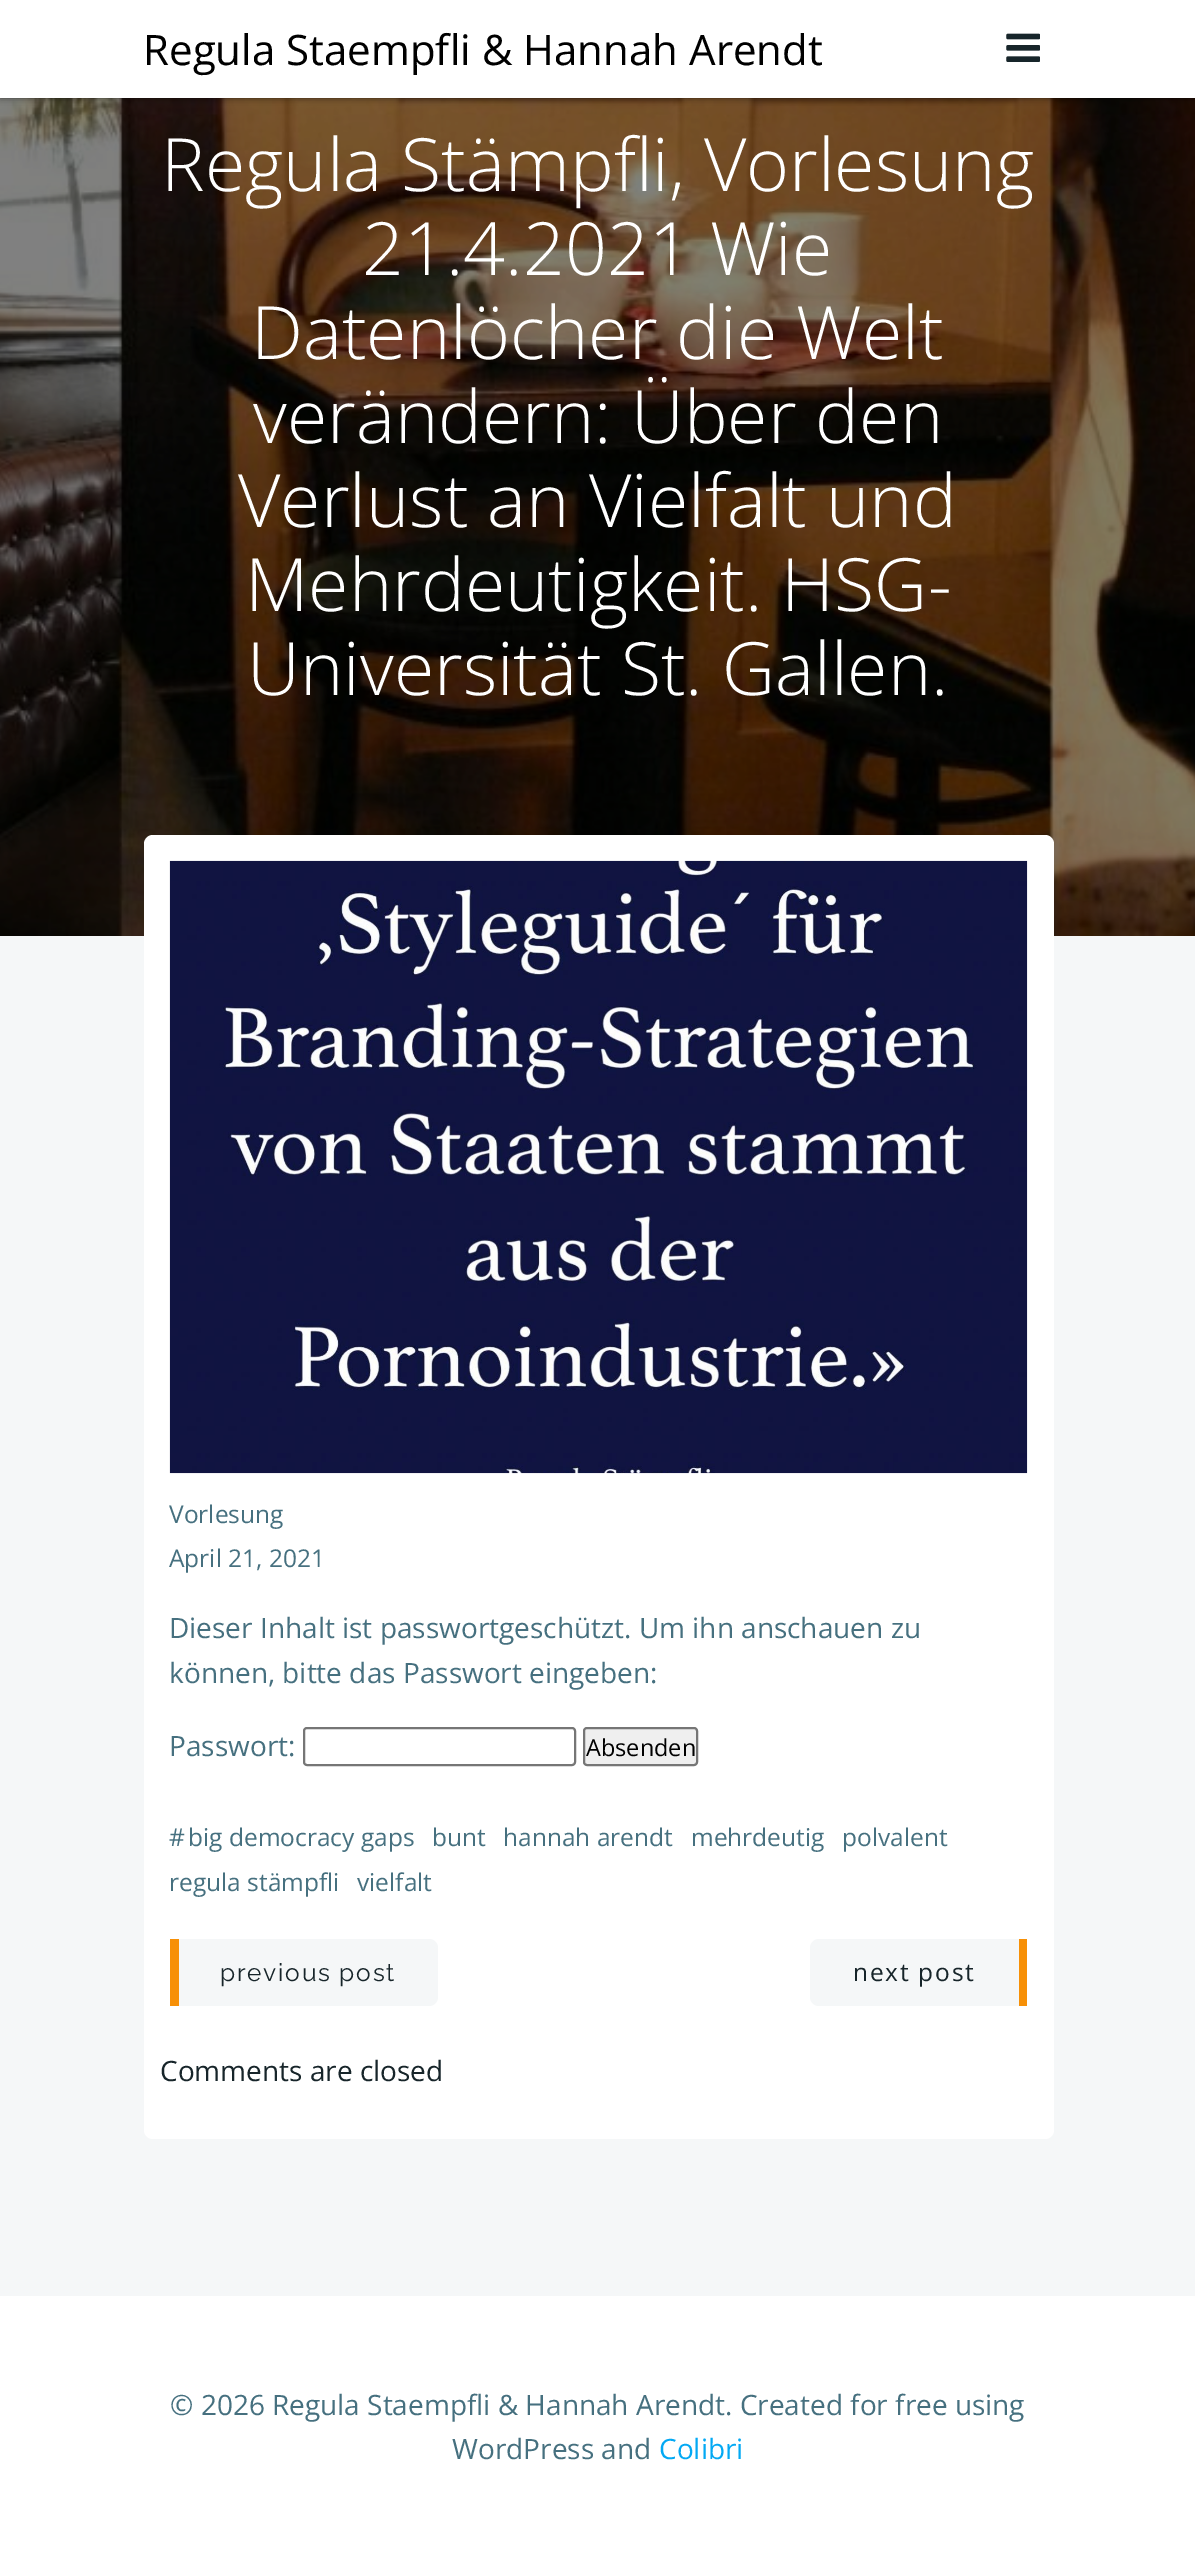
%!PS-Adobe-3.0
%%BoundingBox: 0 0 1195 2550
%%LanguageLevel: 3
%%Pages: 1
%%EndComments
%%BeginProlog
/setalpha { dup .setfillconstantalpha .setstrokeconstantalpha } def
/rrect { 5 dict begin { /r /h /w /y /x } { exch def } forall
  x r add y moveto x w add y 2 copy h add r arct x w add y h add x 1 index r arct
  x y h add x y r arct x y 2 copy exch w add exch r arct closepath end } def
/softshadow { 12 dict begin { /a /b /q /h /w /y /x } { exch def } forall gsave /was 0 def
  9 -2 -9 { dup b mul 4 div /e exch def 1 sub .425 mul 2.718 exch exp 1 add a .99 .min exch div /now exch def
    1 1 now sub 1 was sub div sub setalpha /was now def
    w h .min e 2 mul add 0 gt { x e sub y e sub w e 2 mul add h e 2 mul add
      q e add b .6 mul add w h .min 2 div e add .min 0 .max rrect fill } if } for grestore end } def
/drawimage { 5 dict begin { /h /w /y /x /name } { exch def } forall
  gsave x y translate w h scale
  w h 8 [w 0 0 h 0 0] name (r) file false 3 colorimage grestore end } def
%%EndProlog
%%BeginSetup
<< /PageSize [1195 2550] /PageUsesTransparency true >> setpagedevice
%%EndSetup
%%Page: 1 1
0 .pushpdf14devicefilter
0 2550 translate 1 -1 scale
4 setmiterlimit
1 setgray
0 0 1195 2550 rectfill
(images/2.raw) 0 98 1195 838 drawimage
0 setgray
0 0 1195 98 0 3.5 0.5 softshadow
1 setgray
0 0 1195 98 rectfill
(images/1.raw) 1006 33 34 29 drawimage
0.961 0.969 0.973 setrgbcolor
0 936 1195 1360 rectfill
1 setgray
144 835 910 1304 9 rrect fill
(images/3.raw) 169 860 859 614 drawimage
0.463 setgray
2 setlinewidth
304 1728 271 37 3 rrect stroke
0.937 setgray
584 1728 113 37 3 rrect gsave fill grestore
0.463 setgray
stroke
0.961 0.969 0.973 setrgbcolor
newpath 179 1939 moveto 429 1939 lineto 434 1939 438 1943 438 1948 curveto 438 1997 lineto 438 2002 434 2006 429 2006 curveto 179 2006 lineto closepath fill
0.969 0.565 0.027 setrgbcolor
170 1939 9 67 rectfill
0.961 0.969 0.973 setrgbcolor
newpath 819 1939 moveto 1019 1939 lineto 1019 2006 lineto 819 2006 lineto 814 2006 810 2002 810 1997 curveto 810 1948 lineto 810 1943 814 1939 819 1939 curveto closepath fill
0.969 0.565 0.027 setrgbcolor
1019 1939 8 67 rectfill
/OpenSans-Regular [42 0 0 -42 0 0] selectfont
0 setgray
143 65 moveto (Regula Staempfli & Hannah Arendt) show
/OpenSans-Light [73.5 0 0 -73.5 0 0] selectfont
1 setgray
161 191 moveto (Regula Stämpfli, Vorlesung) show
362 275 moveto (21.4.2021 Wie) show
251 359 moveto (Datenlöcher die Welt) show
253 443 moveto (verändern: Über den) show
238 527 moveto (Verlust an Vielfalt und) show
245 611 moveto (Mehrdeutigkeit. HSG-) show
247 695 moveto (Universität St. Gallen.) show
/OpenSans-Regular [24.5 0 0 -24.5 0 0] selectfont
0.275 0.439 0.498 setrgbcolor
169 1523 moveto (Vorlesung) show
169 1567 moveto (April 21, 2021) show
/OpenSans-Regular [28 0 0 -28 0 0] selectfont
169 1638 moveto (Dieser Inhalt ist passwortgeschützt. Um ihn anschauen zu) show
169 1683 moveto (können, bitte das Passwort eingeben:) show
169 1756 moveto (Passwort:) show
/OpenSans-Regular [23.5 0 0 -23.5 0 0] selectfont
0 setgray
586 1756 moveto (Absenden) show
/OpenSans-Regular [24.5 0 0 -24.5 0 0] selectfont
0.275 0.439 0.498 setrgbcolor
169 1846 moveto (#) show
188 1846 moveto (big democracy gaps) show
432 1846 moveto (bunt) show
503 1846 moveto (hannah arendt) show
691 1846 moveto (mehrdeutig) show
842 1846 moveto (polvalent) show
169 1891 moveto (regula stämpfli) show
357 1891 moveto (vielfalt) show
/Raleway-Regular [24.5 0 0 -24.5 0 0] selectfont
0.09 0.145 0.165 setrgbcolor
220 1981 moveto 1.75 0 (previous post) ashow
/OpenSans-Regular [24.5 0 0 -24.5 0 0] selectfont
853 1981 moveto 1.75 0 (next post) ashow
/OpenSans-Regular [28 0 0 -28 0 0] selectfont
160 2081 moveto (Comments are closed) show
0.275 0.439 0.498 setrgbcolor
170 2415 moveto (© 2026 Regula Staempfli & Hannah Arendt. Created for free using) show
452 2459 moveto (WordPress and) show
0.012 0.663 0.957 setrgbcolor
659 2459 moveto (Colibri) show
.poppdf14devicefilter showpage
%%EOF
